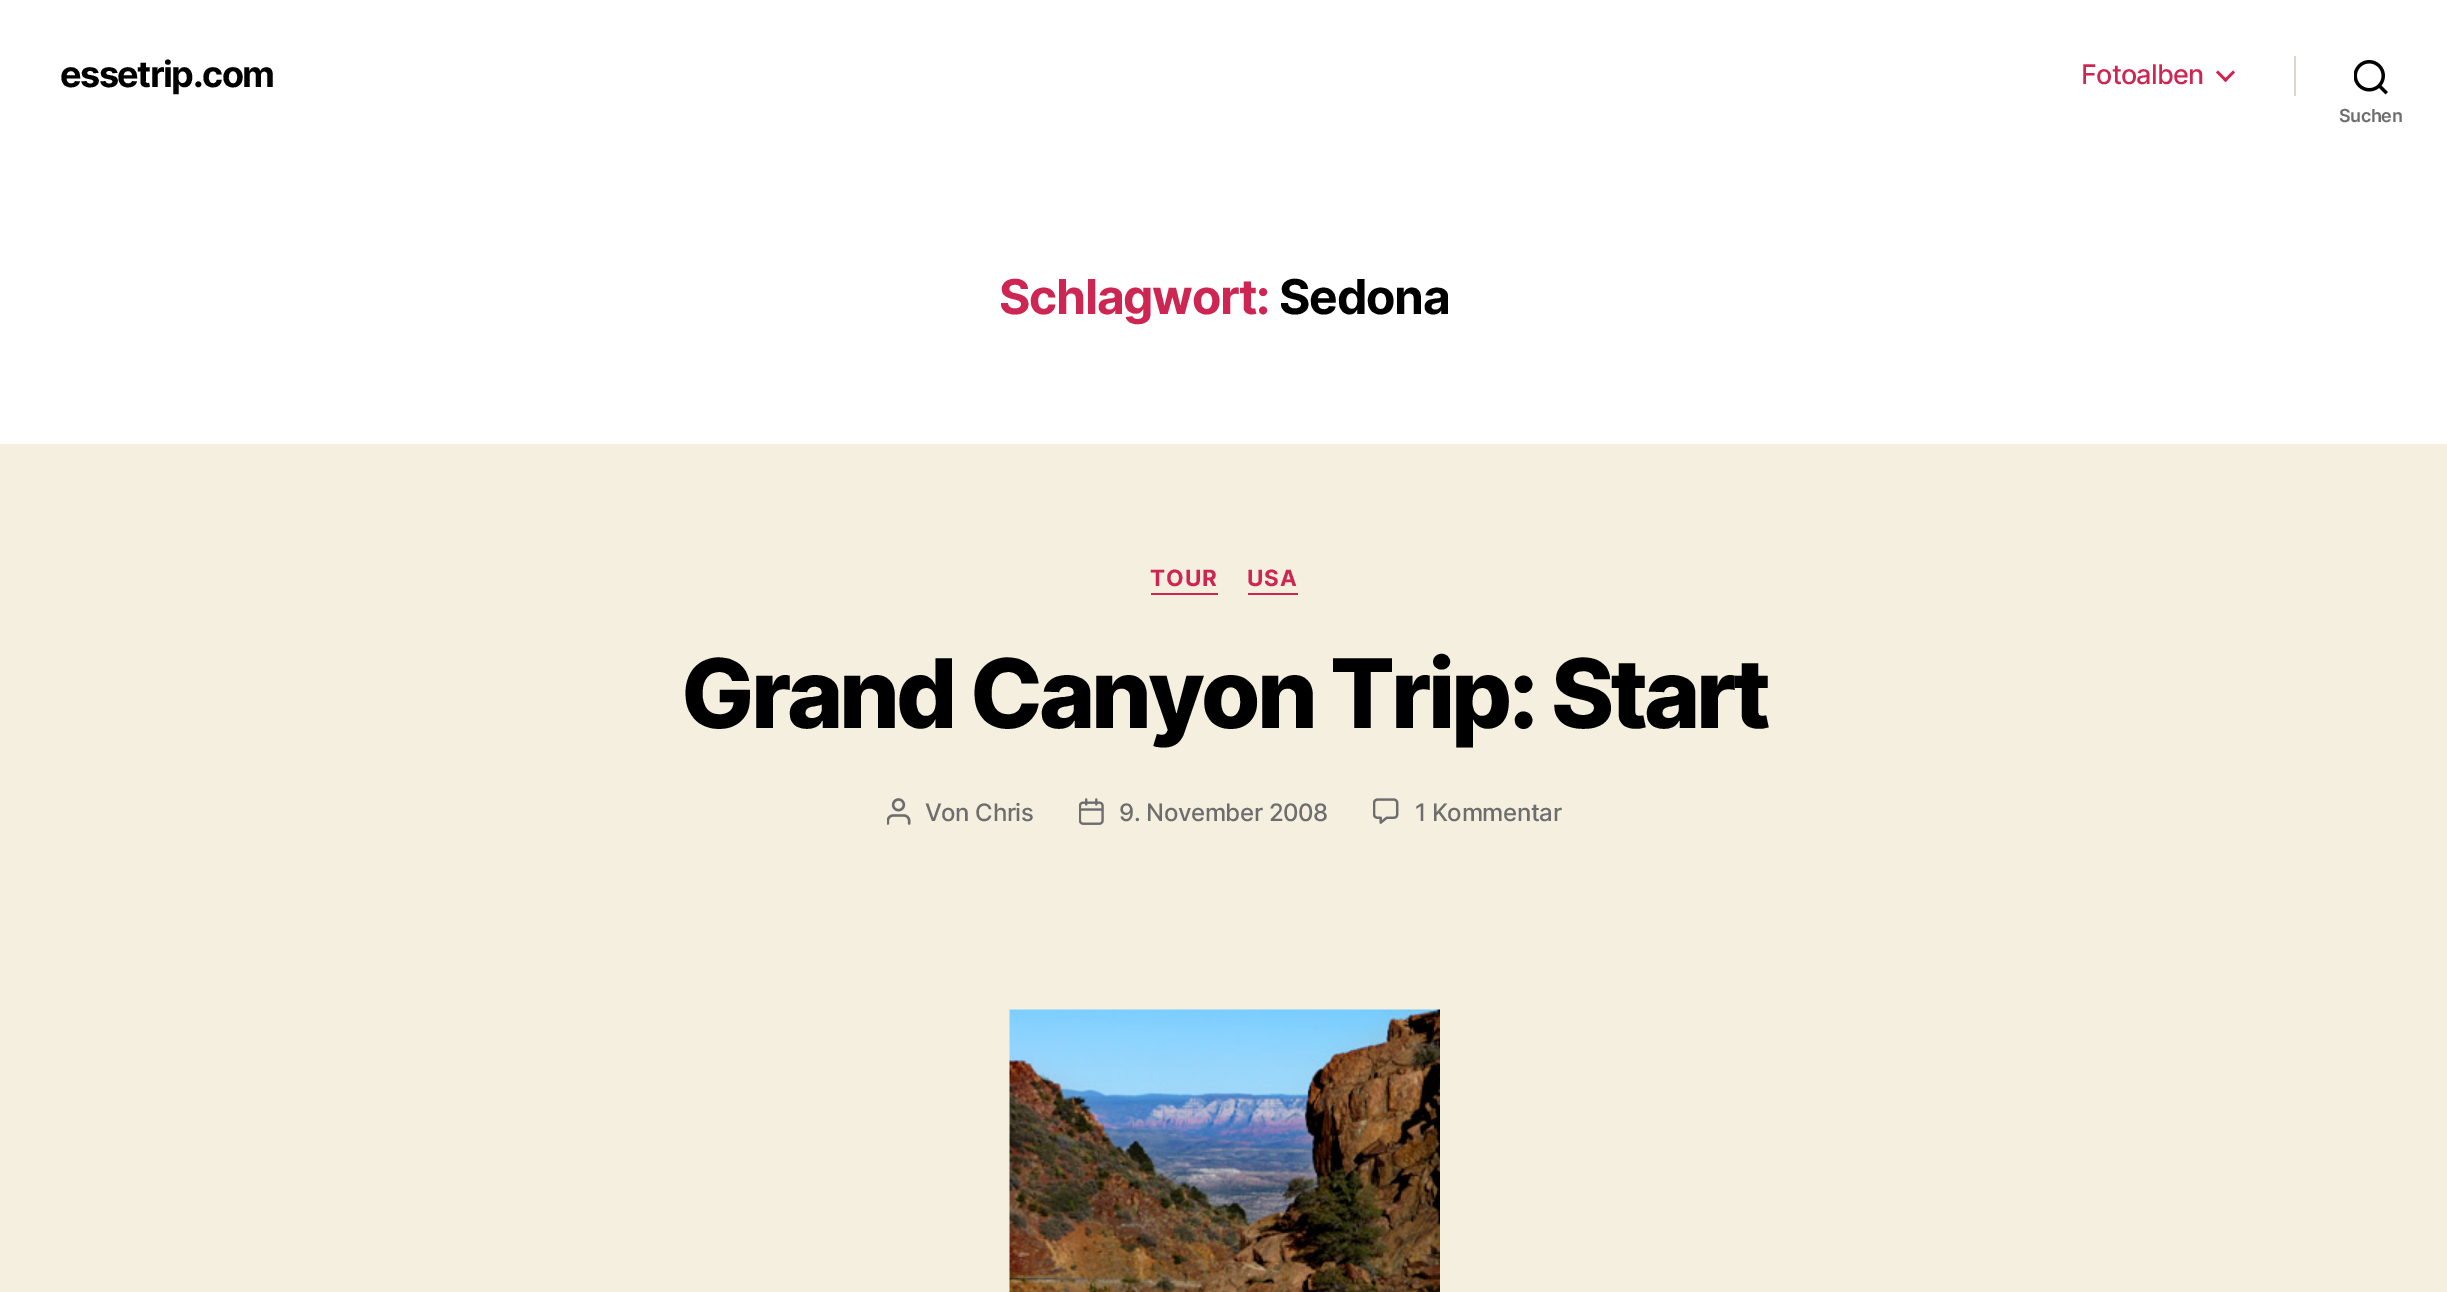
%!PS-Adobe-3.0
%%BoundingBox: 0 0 2447 1292
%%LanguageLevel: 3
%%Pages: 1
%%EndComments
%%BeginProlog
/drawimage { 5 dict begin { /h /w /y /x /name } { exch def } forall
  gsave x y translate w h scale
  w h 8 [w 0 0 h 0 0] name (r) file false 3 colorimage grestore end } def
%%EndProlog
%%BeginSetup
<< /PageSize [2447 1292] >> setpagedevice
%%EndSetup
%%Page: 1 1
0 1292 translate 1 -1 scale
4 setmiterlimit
0.961 0.937 0.878 setrgbcolor
0 0 2447 1292 rectfill
1 setgray
0 0 2447 444 rectfill
0.804 0.149 0.325 setrgbcolor
newpath 2216 72.5 moveto 2218 70.5 lineto 2227.5 80 lineto 2225.5 82 lineto closepath fill
newpath 2223.5 80 moveto 2233 70.5 lineto 2235 72.5 lineto 2225.5 82 lineto closepath fill
0.863 0.843 0.792 setrgbcolor
2294 56 2 40 rectfill
(images/1.raw) 2354 60 34 35 drawimage
0.804 0.149 0.325 setrgbcolor
1151 593 67 2 rectfill
1248 593 50 2 rectfill
(images/2.raw) 887 798 24 27 drawimage
(images/3.raw) 1079 798 25 27 drawimage
(images/4.raw) 1373 798 26 26 drawimage
(images/5.raw) 1009 1009 431 283 drawimage
/Inter-Bold [36 0 0 -36 0 0] selectfont
0 setgray
60 87 moveto -1.5 0 (essetrip.com) ashow
/Inter-Medium [27 0 0 -27 0 0] selectfont
0.804 0.149 0.325 setrgbcolor
2081 84 moveto -0.75 0 (Fotoalben) ashow
/Inter-SemiBold [18 0 0 -18 0 0] selectfont
0.427 setgray
2339 122 moveto -0.4 0 (Suchen) ashow
/Inter-Bold [48 0 0 -48 0 0] selectfont
0.804 0.149 0.325 setrgbcolor
999 314 moveto -1.25 0 (Schlagwort:) ashow
0 setgray
1279 314 moveto -1.25 0 (Sedona) ashow
/Inter-Bold [22.5 0 0 -22.5 0 0] selectfont
0.804 0.149 0.325 setrgbcolor
1150 586 moveto 1 0 (TOUR) ashow
1247 586 moveto 1 0 (USA) ashow
/Inter-ExtraBold [96 0 0 -96 0 0] selectfont
0 setgray
681 728 moveto -4 0 (Grand Canyon Trip: Start) ashow
/Inter-Medium [24 0 0 -24 0 0] selectfont
0.427 setgray
925 821 moveto -0.4 0 (Von Chris) ashow
1119 821 moveto -0.4 0 (9. November 2008) ashow
1415 821 moveto -0.4 0 (1 Kommentar) ashow
showpage
%%EOF
